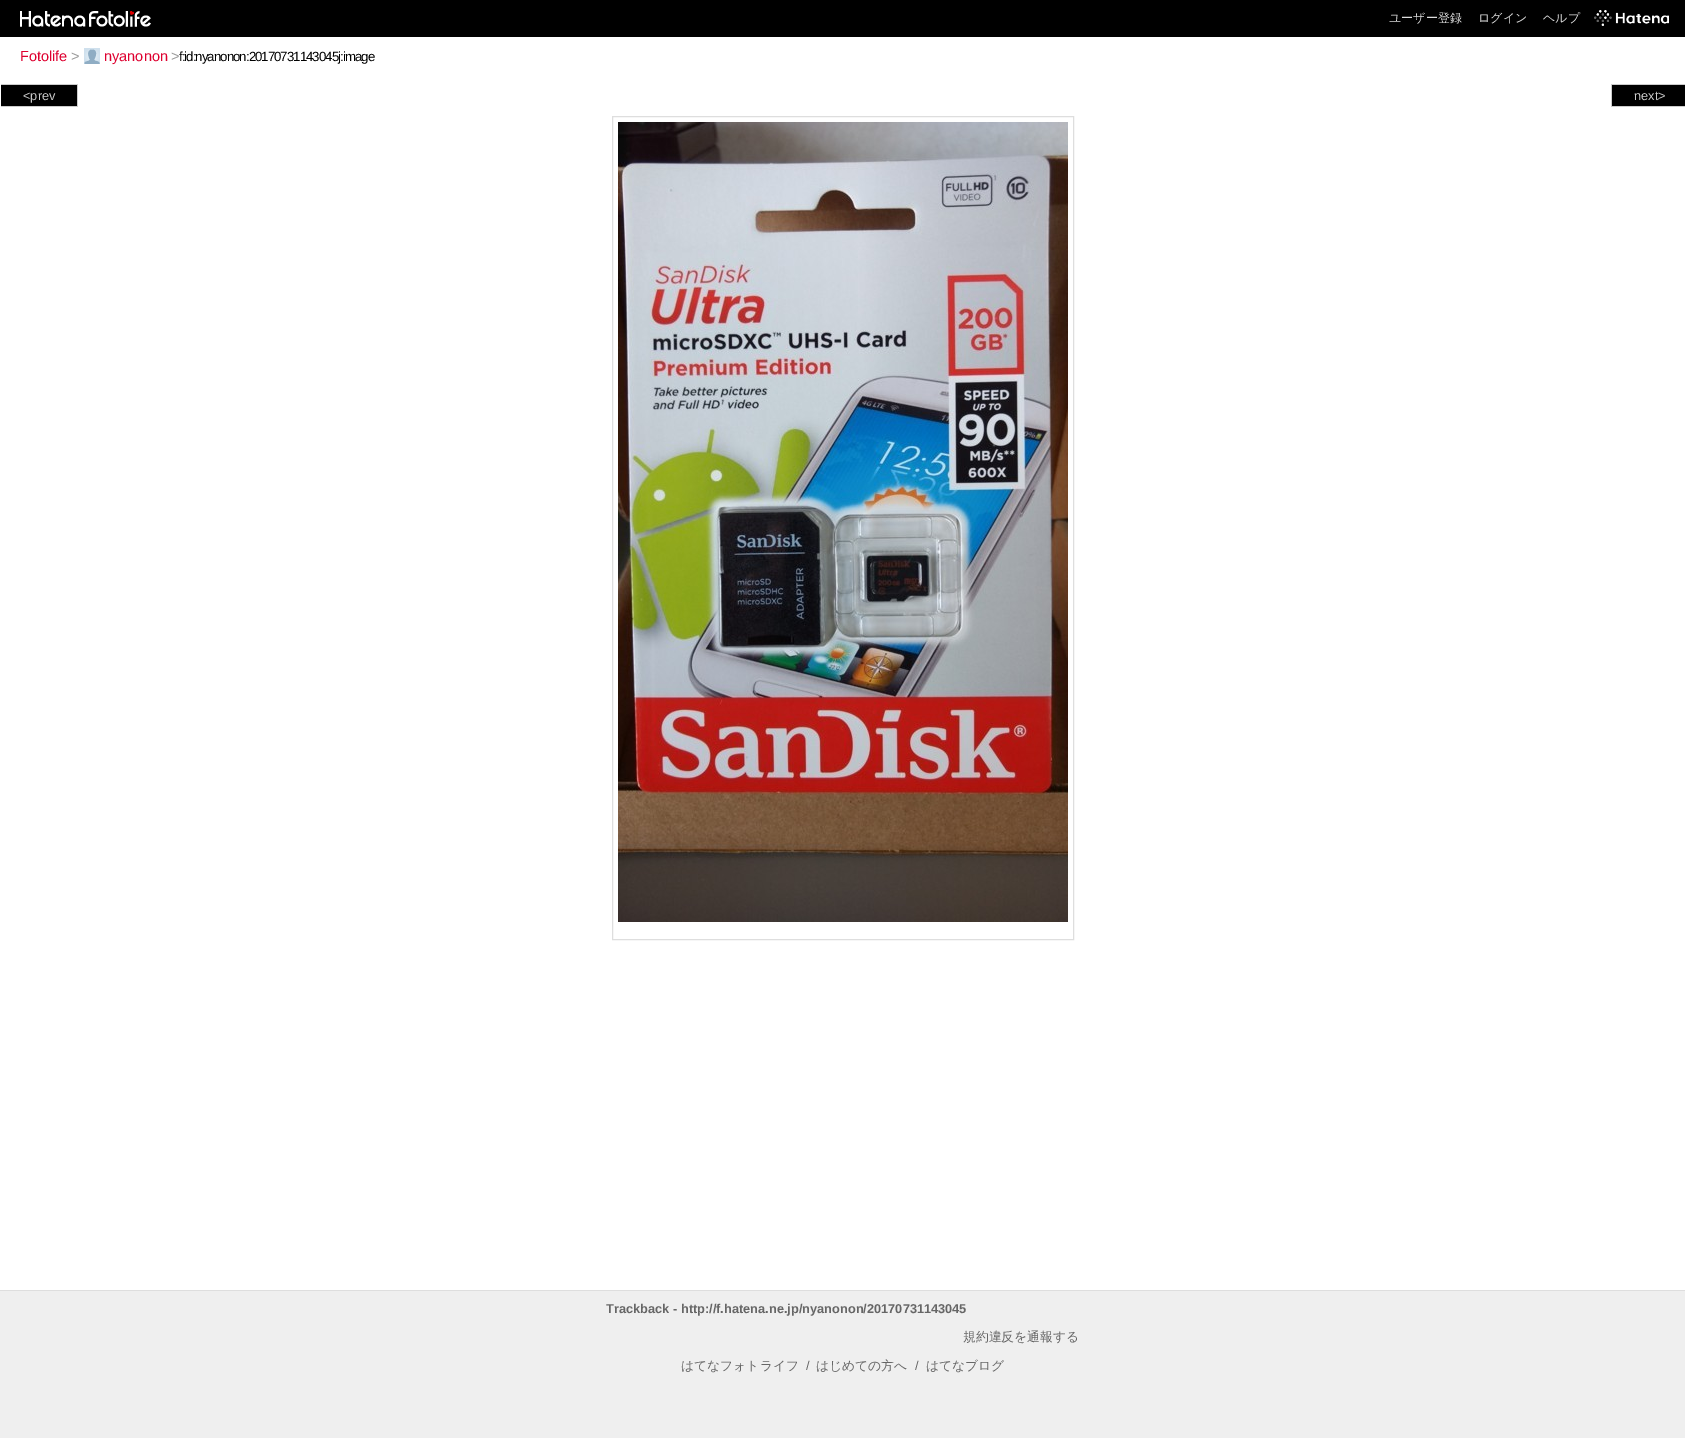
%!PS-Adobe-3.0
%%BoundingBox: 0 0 1685 1438
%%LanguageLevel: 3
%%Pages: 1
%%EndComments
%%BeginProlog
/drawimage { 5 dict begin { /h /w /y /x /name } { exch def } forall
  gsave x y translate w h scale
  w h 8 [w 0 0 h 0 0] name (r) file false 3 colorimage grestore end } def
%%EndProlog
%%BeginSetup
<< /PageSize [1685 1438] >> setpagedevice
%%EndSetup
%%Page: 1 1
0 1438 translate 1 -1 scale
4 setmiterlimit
0.937 setgray
0 0 1685 1438 rectfill
0 setgray
0 0 1685 37 rectfill
(images/1.raw) 20 11 66 16 drawimage
(images/2.raw) 89 11 62 16 drawimage
(images/3.raw) 1594 10 75 16 drawimage
1 setgray
0 37 1685 1253 rectfill
(images/4.raw) 84 48 16 16 drawimage
0.871 setgray
0 1290 1685 1 rectfill
0 setgray
1 85 76 21 rectfill
0.8 setgray
1 84 77 1 rectfill
77 84 1 23 rectfill
1 106 77 1 rectfill
0 setgray
1612 85 73 21 rectfill
0.8 setgray
1611 84 74 1 rectfill
1611 106 74 1 rectfill
1611 84 1 23 rectfill
0.871 setgray
612.5 116.5 461 823 rectstroke
(images/5.raw) 618 122 450 800 drawimage
/WenQuanYiZenHei-Medium [12 0 0 -12 0 0] selectfont
0.867 setgray
1389 22 moveto (ユーザー登録) show
1478 22 moveto (ログイン) show
1543 22 moveto (ヘルプ) show
/LiberationSans-Regular [14.5 0 0 -14.5 0 0] selectfont
0.871 0 0.184 setrgbcolor
20 61 moveto (Fotolife) show
0.6 setgray
71 61 moveto (>) show
0.871 0 0.184 setrgbcolor
104 61 moveto (nyanonon) show
0.6 setgray
171 61 moveto (>) show
/LiberationSans-Regular [13.3 0 0 -13.3 0 0] selectfont
0 setgray
179 61 moveto -1 0 (f:id:nyanonon:20170731143045j:image) ashow
/LiberationSans-Regular [12.8 0 0 -12.8 0 0] selectfont
0.8 setgray
23 100 moveto (<prev) show
1634 100 moveto (next>) show
/LiberationSans-Bold [12.8 0 0 -12.8 0 0] selectfont
0.4 setgray
606 1313 moveto (Trackback - http://f.hatena.ne.jp/nyanonon/20170731143045) show
/WenQuanYiZenHei-Medium [12.8 0 0 -12.8 0 0] selectfont
963 1341 moveto (規約違反を通報する) show
681 1370 moveto (はてなフォトライフ) show
/LiberationSans-Regular [12.8 0 0 -12.8 0 0] selectfont
806 1370 moveto (/) show
/WenQuanYiZenHei-Medium [12.8 0 0 -12.8 0 0] selectfont
816 1370 moveto (はじめての方へ) show
/LiberationSans-Regular [12.8 0 0 -12.8 0 0] selectfont
915 1370 moveto (/) show
/WenQuanYiZenHei-Medium [12.8 0 0 -12.8 0 0] selectfont
926 1370 moveto (はてなブログ) show
showpage
%%EOF
